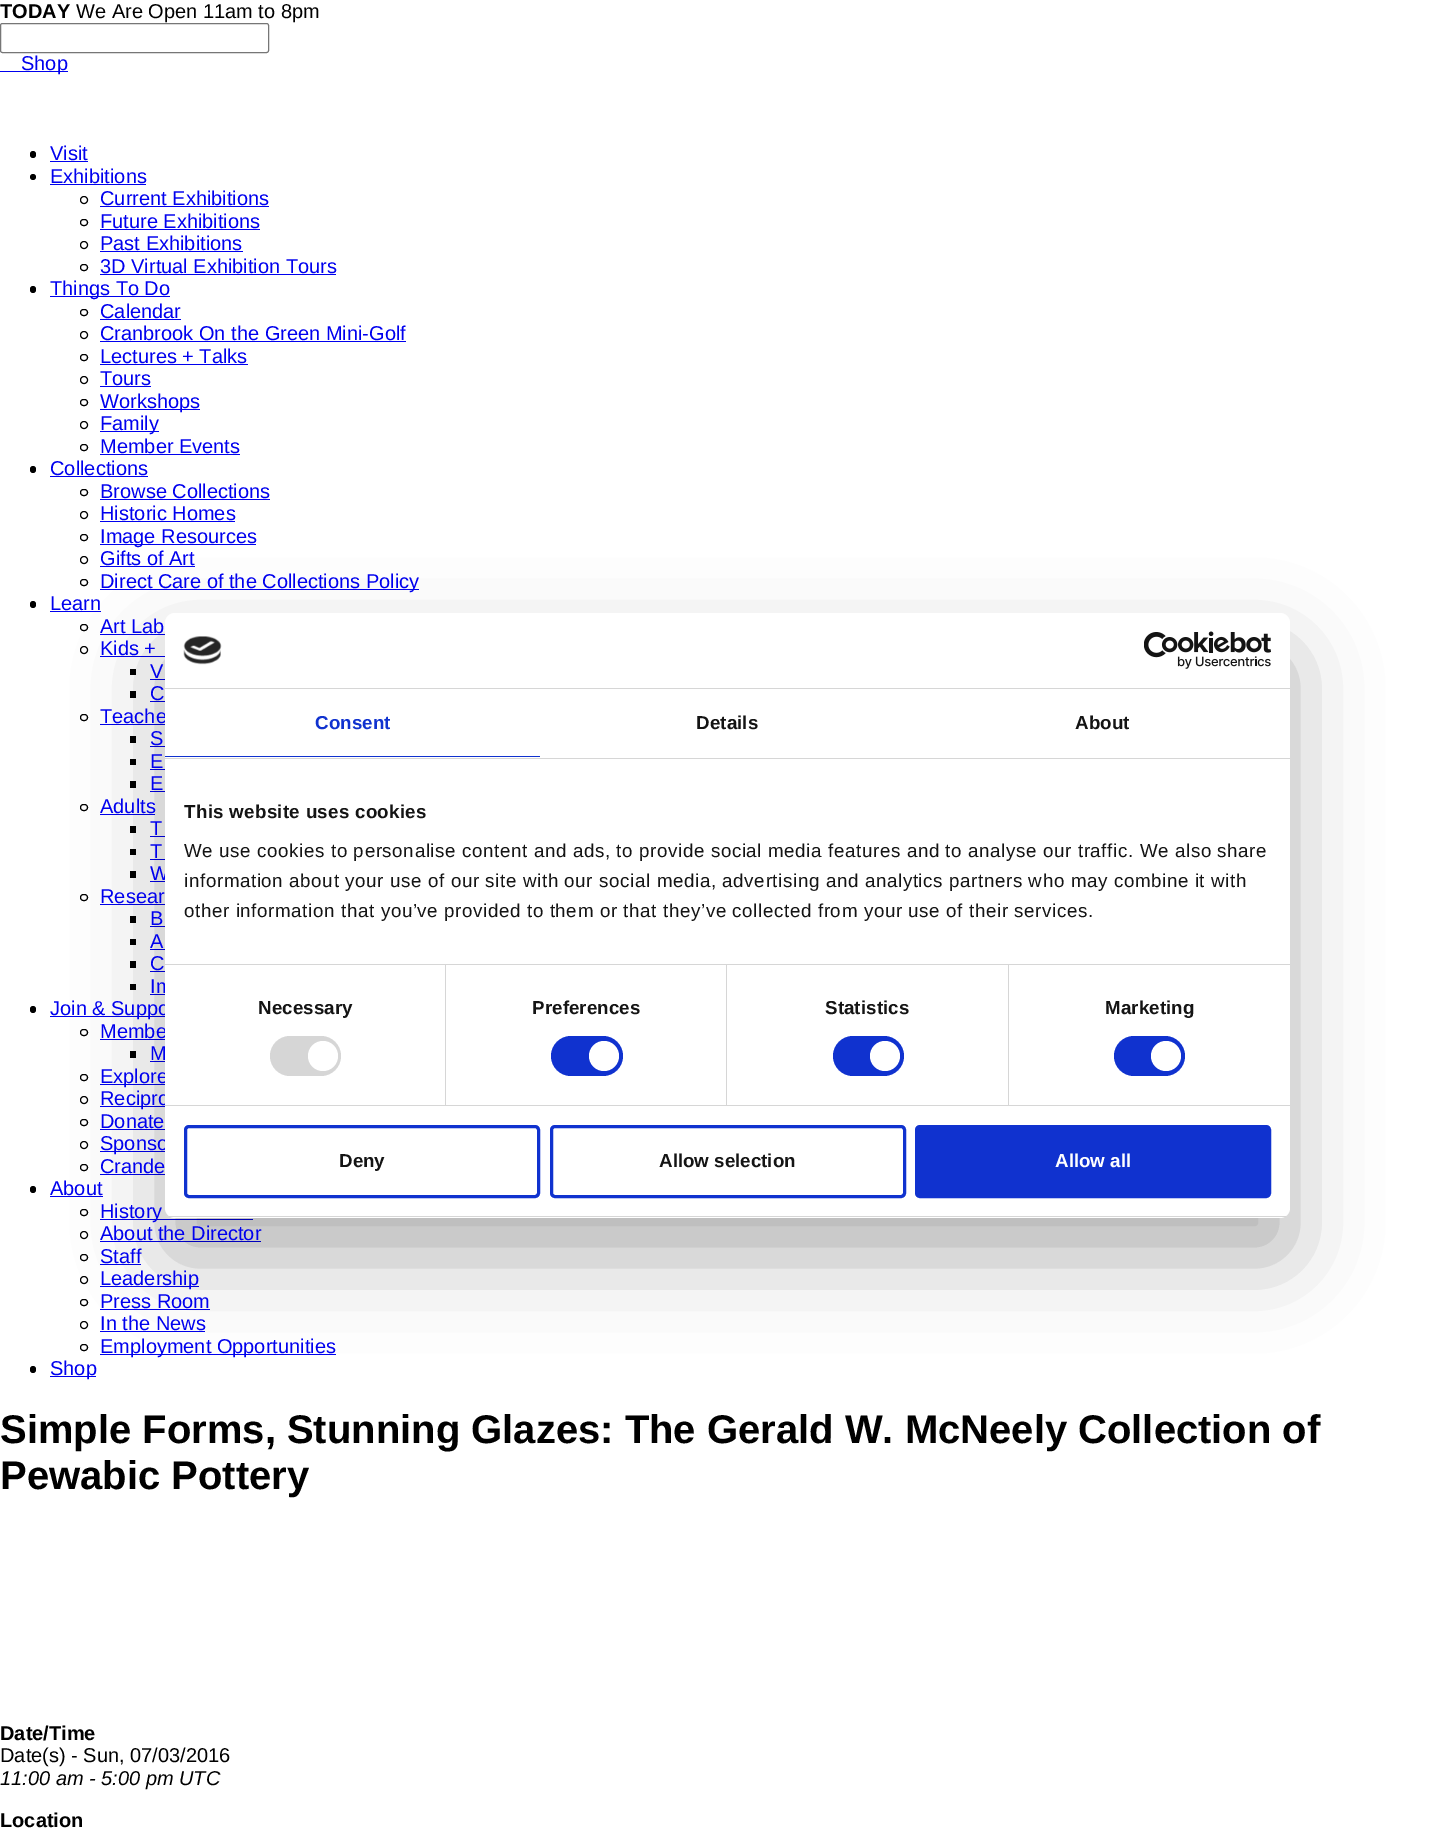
%!PS-Adobe-3.0
%%BoundingBox: 0 0 1454 1829
%%LanguageLevel: 3
%%Pages: 1
%%EndComments
%%BeginProlog
/setalpha { dup .setfillconstantalpha .setstrokeconstantalpha } def
/rrect { 5 dict begin { /r /h /w /y /x } { exch def } forall
  x r add y moveto x w add y 2 copy h add r arct x w add y h add x 1 index r arct
  x y h add x y r arct x y 2 copy exch w add exch r arct closepath end } def
/softshadow { 12 dict begin { /a /b /q /h /w /y /x } { exch def } forall gsave /was 0 def
  9 -2 -9 { dup b mul 4 div /e exch def 1 sub .425 mul 2.718 exch exp 1 add a .99 .min exch div /now exch def
    1 1 now sub 1 was sub div sub setalpha /was now def
    w h .min e 2 mul add 0 gt { x e sub y e sub w e 2 mul add h e 2 mul add
      q e add b .6 mul add w h .min 2 div e add .min 0 .max rrect fill } if } for grestore end } def
/drawimage { 5 dict begin { /h /w /y /x /name } { exch def } forall
  gsave x y translate w h scale
  w h 8 [w 0 0 h 0 0] name (r) file false 3 colorimage grestore end } def
%%EndProlog
%%BeginSetup
<< /PageSize [1454 1829] /PageUsesTransparency true >> setpagedevice
%%EndSetup
%%Page: 1 1
0 .pushpdf14devicefilter
0 1829 translate 1 -1 scale
4 setmiterlimit
1 setgray
0 0 1454 1829 rectfill
0.463 setgray
0.5 23.5 268 29 2 rrect stroke
0 0 0.933 setrgbcolor
0 71 68 1 rectfill
0 setgray
30 151 6 7 3 rrect fill
0 0 0.933 setrgbcolor
50 161 38 1 rectfill
0 setgray
newpath 33 177 3 0 360 arc closepath fill
0 0 0.933 setrgbcolor
50 184 96 1 rectfill
0 setgray
newpath 84 200 3.5 0 360 arc closepath stroke
0 0 0.933 setrgbcolor
100 206 169 1 rectfill
0 setgray
80.5 219.5 7 6 3 rrect stroke
0 0 0.933 setrgbcolor
100 229 160 1 rectfill
0 setgray
newpath 84 245 3.5 0 360 arc closepath stroke
0 0 0.933 setrgbcolor
100 251 143 1 rectfill
0 setgray
80.5 264.5 7 6 3 rrect stroke
0 0 0.933 setrgbcolor
100 274 236 1 rectfill
0 setgray
30 286 6 7 3 rrect fill
0 0 0.933 setrgbcolor
50 296 120 1 rectfill
0 setgray
80.5 309.5 7 6 3 rrect stroke
0 0 0.933 setrgbcolor
100 319 81 1 rectfill
0 setgray
newpath 84 335 3.5 0 360 arc closepath stroke
0 0 0.933 setrgbcolor
100 341 306 1 rectfill
0 setgray
80.5 354.5 7 6 3 rrect stroke
0 0 0.933 setrgbcolor
100 364 148 1 rectfill
0 setgray
newpath 84 380 3.5 0 360 arc closepath stroke
0 0 0.933 setrgbcolor
100 386 51 1 rectfill
0 setgray
80.5 399.5 7 6 3 rrect stroke
0 0 0.933 setrgbcolor
100 409 100 1 rectfill
0 setgray
newpath 84 425 3.5 0 360 arc closepath stroke
0 0 0.933 setrgbcolor
100 431 59 1 rectfill
0 setgray
80.5 444.5 7 6 3 rrect stroke
0 0 0.933 setrgbcolor
100 454 140 1 rectfill
0 setgray
30 466 6 7 3 rrect fill
0 0 0.933 setrgbcolor
50 476 98 1 rectfill
0 setgray
80.5 489.5 7 6 3 rrect stroke
0 0 0.933 setrgbcolor
100 499 170 1 rectfill
0 setgray
newpath 84 515 3.5 0 360 arc closepath stroke
0 0 0.933 setrgbcolor
100 521 135 1 rectfill
0 setgray
80.5 534.5 7 6 3 rrect stroke
0 0 0.933 setrgbcolor
100 544 156 1 rectfill
0 setgray
newpath 84 560 3.5 0 360 arc closepath stroke
0 0 0.933 setrgbcolor
100 566 95 1 rectfill
0 setgray
80.5 579.5 7 6 3 rrect stroke
0 0 0.933 setrgbcolor
100 589 319 1 rectfill
0 setgray
30 601 6 7 3 rrect fill
0 0 0.933 setrgbcolor
50 611 51 1 rectfill
0 setgray
80.5 624.5 7 6 3 rrect stroke
0 0 0.933 setrgbcolor
100 634 65 1 rectfill
0 setgray
newpath 84 650 3.5 0 360 arc closepath stroke
0 0 0.933 setrgbcolor
100 656 65 1 rectfill
0 setgray
130 669 6 6 rectfill
0 0 0.933 setrgbcolor
150 679 15 1 rectfill
0 setgray
130 691 6 7 rectfill
0 0 0.933 setrgbcolor
150 701 15 1 rectfill
0 setgray
80.5 714.5 7 6 3 rrect stroke
0 0 0.933 setrgbcolor
100 724 65 1 rectfill
0 setgray
130 736 6 7 rectfill
0 0 0.933 setrgbcolor
150 746 15 1 rectfill
0 setgray
130 759 6 6 rectfill
0 0 0.933 setrgbcolor
150 769 15 1 rectfill
0 setgray
130 781 6 7 rectfill
0 0 0.933 setrgbcolor
150 791 15 1 rectfill
0 setgray
80.5 804.5 7 6 3 rrect stroke
0 0 0.933 setrgbcolor
100 814 55 1 rectfill
0 setgray
130 826 6 7 rectfill
0 0 0.933 setrgbcolor
150 836 15 1 rectfill
0 setgray
130 849 6 6 rectfill
0 0 0.933 setrgbcolor
150 859 15 1 rectfill
0 setgray
130 871 6 7 rectfill
0 0 0.933 setrgbcolor
150 881 15 1 rectfill
0 setgray
80.5 894.5 7 6 3 rrect stroke
0 0 0.933 setrgbcolor
100 904 65 1 rectfill
0 setgray
130 916 6 7 rectfill
0 0 0.933 setrgbcolor
150 926 15 1 rectfill
0 setgray
130 939 6 6 rectfill
0 0 0.933 setrgbcolor
150 949 15 1 rectfill
0 setgray
130 961 6 7 rectfill
0 0 0.933 setrgbcolor
150 971 15 1 rectfill
0 setgray
130 984 6 6 rectfill
0 0 0.933 setrgbcolor
150 994 15 1 rectfill
0 setgray
30 1006 6 7 3 rrect fill
0 0 0.933 setrgbcolor
50 1016 115 1 rectfill
0 setgray
80.5 1029.5 7 6 3 rrect stroke
0 0 0.933 setrgbcolor
100 1039 65 1 rectfill
0 setgray
130 1051 6 7 rectfill
0 0 0.933 setrgbcolor
150 1061 15 1 rectfill
0 setgray
80.5 1074.5 7 6 3 rrect stroke
0 0 0.933 setrgbcolor
100 1084 65 1 rectfill
0 setgray
newpath 84 1100 3.5 0 360 arc closepath stroke
0 0 0.933 setrgbcolor
100 1106 65 1 rectfill
0 setgray
80.5 1119.5 7 6 3 rrect stroke
0 0 0.933 setrgbcolor
100 1129 65 1 rectfill
0 setgray
newpath 84 1145 3.5 0 360 arc closepath stroke
0 0 0.933 setrgbcolor
100 1151 65 1 rectfill
0 setgray
80.5 1164.5 7 6 3 rrect stroke
0 0 0.933 setrgbcolor
100 1174 65 1 rectfill
0 setgray
30 1186 6 7 3 rrect fill
0 0 0.933 setrgbcolor
50 1196 53 1 rectfill
0 setgray
80.5 1209.5 7 6 3 rrect stroke
0 0 0.933 setrgbcolor
100 1219 153 1 rectfill
0 setgray
newpath 84 1235 3.5 0 360 arc closepath stroke
0 0 0.933 setrgbcolor
100 1241 161 1 rectfill
0 setgray
80.5 1254.5 7 6 3 rrect stroke
0 0 0.933 setrgbcolor
100 1264 41 1 rectfill
0 setgray
newpath 84 1280 3.5 0 360 arc closepath stroke
0 0 0.933 setrgbcolor
100 1286 99 1 rectfill
0 setgray
80.5 1299.5 7 6 3 rrect stroke
0 0 0.933 setrgbcolor
100 1309 110 1 rectfill
0 setgray
newpath 84 1325 3.5 0 360 arc closepath stroke
0 0 0.933 setrgbcolor
100 1331 105 1 rectfill
0 setgray
80.5 1344.5 7 6 3 rrect stroke
0 0 0.933 setrgbcolor
100 1354 236 1 rectfill
0 setgray
30 1366 6 7 3 rrect fill
0 0 0.933 setrgbcolor
50 1376 46 1 rectfill
0 setgray
165 653 1125 605 10 42.5 0.3 softshadow
/LiberationSans-Bold [20 0 0 -20 0 0] selectfont
0 18 moveto (TODAY) show
/LiberationSans-Regular [20 0 0 -20 0 0] selectfont
76 18 moveto (We Are Open 11am to 8pm) show
0 0 0.933 setrgbcolor
21 70 moveto (Shop) show
50 160 moveto (Visit) show
50 183 moveto (Exhibitions) show
100 205 moveto (Current Exhibitions) show
100 228 moveto (Future Exhibitions) show
100 250 moveto (Past Exhibitions) show
100 273 moveto (3D Virtual Exhibition Tours) show
50 295 moveto (Things To Do) show
100 318 moveto (Calendar) show
100 340 moveto (Cranbrook On the Green Mini-Golf) show
100 363 moveto (Lectures + Talks) show
100 385 moveto (Tours) show
100 408 moveto (Workshops) show
100 430 moveto (Family) show
100 453 moveto (Member Events) show
50 475 moveto (Collections) show
100 498 moveto (Browse Collections) show
100 520 moveto (Historic Homes) show
100 543 moveto (Image Resources) show
100 565 moveto (Gifts of Art) show
100 588 moveto (Direct Care of the Collections Policy) show
50 610 moveto (Learn) show
100 633 moveto (Art Lab) show
100 655 moveto (Kids +) show
150 678 moveto (V) show
150 700 moveto (C) show
100 723 moveto (Teache) show
150 745 moveto (S) show
150 768 moveto (E) show
150 790 moveto (E) show
100 813 moveto (Adults) show
150 835 moveto (T) show
150 858 moveto (T) show
150 880 moveto (W) show
100 903 moveto (Resear) show
150 925 moveto (B) show
150 948 moveto (A) show
150 970 moveto (C) show
150 993 moveto (Im) show
50 1015 moveto (Join & Suppo) show
100 1038 moveto (Membe) show
150 1060 moveto (M) show
100 1083 moveto (Explore) show
100 1105 moveto (Recipro) show
100 1128 moveto (Donate) show
100 1150 moveto (Sponso) show
100 1173 moveto (Crande) show
50 1195 moveto (About) show
100 1218 moveto (History) show
100 1240 moveto (About the Director) show
100 1263 moveto (Staff) show
100 1285 moveto (Leadership) show
100 1308 moveto (Press Room) show
100 1330 moveto (In the News) show
100 1353 moveto (Employment Opportunities) show
50 1375 moveto (Shop) show
1 setgray
165 613 1125 605 10 rrect fill
0.839 setgray
165 688 1125 1 rectfill
(images/1.raw) 183 636 39 29 drawimage
(images/2.raw) 1144 631 127 38 drawimage
165 758 1125 1 rectfill
0.063 0.196 0.812 setrgbcolor
165 756 375 1 rectfill
/LiberationSans-Bold [18.75 0 0 -18.75 0 0] selectfont
315 729 moveto 0.1 0 (Consent) ashow
0.078 setgray
696 729 moveto 0.1 0 (Details) ashow
1075 729 moveto 0.1 0 (About) ashow
0.839 setgray
165 964 1125 1 rectfill
0.078 setgray
184 818 moveto 0.3 0 (This website uses cookies) ashow
/LiberationSans-Regular [18.75 0 0 -18.75 0 0] selectfont
184 857 moveto 0.62 0 (We use cookies to personalise content and ads, to provide social media features and to analyse our traffic. We also share) ashow
184 887 moveto 0.62 0 (information about your use of our site with our social media, advertising and analytics partners who may combine it with) ashow
184 917 moveto 0.62 0 (other information that you’ve provided to them or that they’ve collected from your use of their services.) ashow
0.839 setgray
165 1105 1125 1 rectfill
445 965 1 140 rectfill
/LiberationSans-Bold [18.75 0 0 -18.75 0 0] selectfont
0.078 setgray
258 1014 moveto 0.1 0 (Necessary) ashow
0.839 setgray
270 1036 71 40 20 rrect fill
1 setgray
newpath 323 1056 15 0 360 arc closepath fill
0.839 setgray
726 965 1 140 rectfill
0.078 setgray
532 1014 moveto 0.1 0 (Preferences) ashow
0.063 0.196 0.812 setrgbcolor
551 1036 72 40 20 rrect fill
1 setgray
newpath 604 1056 15 0 360 arc closepath fill
0.839 setgray
1008 965 1 140 rectfill
0.078 setgray
825 1014 moveto 0.1 0 (Statistics) ashow
0.063 0.196 0.812 setrgbcolor
833 1036 71 40 20 rrect fill
1 setgray
newpath 885 1056 15 0 360 arc closepath fill
0.078 setgray
1105 1014 moveto 0.1 0 (Marketing) ashow
0.063 0.196 0.812 setrgbcolor
1114 1036 71 40 20 rrect fill
1 setgray
newpath 1166 1056 15 0 360 arc closepath fill
gsave
165 613 1125 605 10 rrect clip newpath
0.839 setgray
165 1216 1125 1 rectfill
grestore
0.063 0.196 0.812 setrgbcolor
3 setlinewidth
185.5 1126.5 353 70 3.5 rrect stroke
0.078 setgray
339 1167 moveto (Deny) show
0.063 0.196 0.812 setrgbcolor
551.5 1126.5 353 70 3.5 rrect stroke
0.078 setgray
659 1167 moveto (Allow selection) show
0.063 0.196 0.812 setrgbcolor
916.5 1126.5 353 70 3.5 rrect gsave fill grestore
stroke
1 setgray
1055 1167 moveto (Allow all) show
/LiberationSans-Bold [40 0 0 -40 0 0] selectfont
0 setgray
0 1443 moveto (Simple Forms, Stunning Glazes: The Gerald W. McNeely Collection of) show
0 1489 moveto (Pewabic Pottery) show
/LiberationSans-Bold [20 0 0 -20 0 0] selectfont
0 1740 moveto (Date/Time) show
/LiberationSans-Regular [20 0 0 -20 0 0] selectfont
0 1762 moveto (Date\(s\) - Sun, 07/03/2016) show
/LiberationSans-Italic [20 0 0 -20 0 0] selectfont
0 1785 moveto (11:00 am - 5:00 pm UTC) show
/LiberationSans-Bold [20 0 0 -20 0 0] selectfont
0 1827 moveto (Location) show
.poppdf14devicefilter showpage
%%EOF
